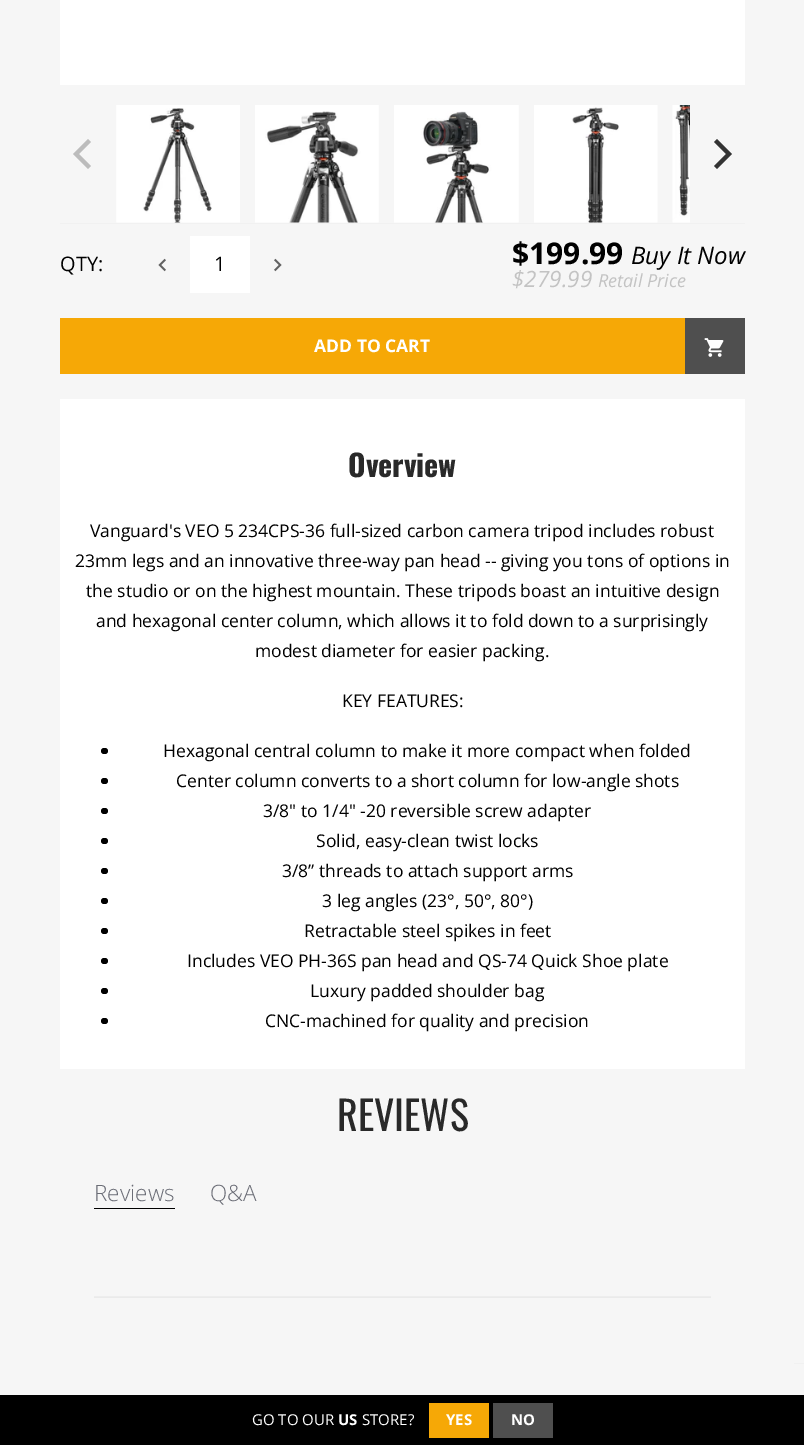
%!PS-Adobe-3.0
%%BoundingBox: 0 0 804 1445
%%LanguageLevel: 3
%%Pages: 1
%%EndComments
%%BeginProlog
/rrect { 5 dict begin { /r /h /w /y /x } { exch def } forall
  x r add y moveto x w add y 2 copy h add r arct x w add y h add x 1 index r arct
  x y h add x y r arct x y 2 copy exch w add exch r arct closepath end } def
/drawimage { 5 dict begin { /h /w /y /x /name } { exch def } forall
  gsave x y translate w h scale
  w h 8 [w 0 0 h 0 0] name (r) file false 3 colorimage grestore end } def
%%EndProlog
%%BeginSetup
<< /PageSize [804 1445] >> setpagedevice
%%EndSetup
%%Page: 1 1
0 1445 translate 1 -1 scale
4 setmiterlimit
0.965 setgray
0 0 804 1445 rectfill
1 setgray
60 0 685 85 rectfill
0.737 setgray
newpath 73 154 moveto 88 169 lineto 91 166 lineto 79 154 lineto 91 142 lineto 88 139 lineto closepath fill
(images/1.raw) 116 105 124 118 drawimage
(images/2.raw) 255 105 124 118 drawimage
(images/3.raw) 394 105 125 118 drawimage
(images/4.raw) 534 105 124 118 drawimage
(images/5.raw) 672 105 18 118 drawimage
0.2 setgray
newpath 732 154 moveto 717 139 lineto 714 142 lineto 726 154 lineto 714 166 lineto 717 169 lineto closepath fill
0.945 setgray
60 223 685 1 rectfill
(images/6.raw) 158 258 8 14 drawimage
1 setgray
190 236 60 57 rectfill
(images/7.raw) 274 258 8 14 drawimage
0.965 0.659 0.024 setrgbcolor
60 318 625 56 rectfill
0.31 setgray
685 318 60 56 rectfill
(images/8.raw) 704 338 20 19 drawimage
1 setgray
60 399 685 670 rectfill
0 setgray
101 748 7 6 3 rrect fill
101 778 7 6 3 rrect fill
101 808 7 6 3 rrect fill
101 838 7 6 3 rrect fill
101 868 7 6 3 rrect fill
101 898 7 6 3 rrect fill
101 928 7 6 3 rrect fill
101 958 7 6 3 rrect fill
101 988 7 6 3 rrect fill
101 1018 7 6 3 rrect fill
94 1208 81 1 rectfill
(images/9.raw) 94 1296 617 2 drawimage
0.945 setgray
794 1363 10 1 rectfill
0 setgray
0 1395 804 50 rectfill
0.965 0.659 0.024 setrgbcolor
429 1403 60 35 rectfill
0.31 setgray
493 1403 60 35 rectfill
/OpenSans-Regular [20 0 0 -20 0 0] selectfont
0 setgray
60 271 moveto (QTY:) show
214 271 moveto (1) show
/OpenSans-Bold [30 0 0 -30 0 0] selectfont
512 264 moveto ($199.99) show
/OpenSans-Italic [24 0 0 -24 0 0] selectfont
631 264 moveto (Buy It Now) show
/OpenSans-Italic [22.5 0 0 -22.5 0 0] selectfont
0.765 setgray
512 287 moveto ($279.99) show
/OpenSans-Italic [18 0 0 -18 0 0] selectfont
598 287 moveto (Retail Price) show
/OpenSans-Bold [17.5 0 0 -17.5 0 0] selectfont
1 setgray
314 352 moveto (ADD TO CART) show
/Oswald-Bold [30 0 0 -30 0 0] selectfont
0.161 setgray
348 477 moveto (Overview) show
/OpenSans-Regular [17.5 0 0 -17.5 0 0] selectfont
0 setgray
90 537 moveto (Vanguard's VEO 5 234CPS-36 full-sized carbon camera tripod includes robust) show
75 567 moveto (23mm legs and an innovative three-way pan head -- giving you tons of options in) show
86 597 moveto (the studio or on the highest mountain. These tripods boast an intuitive design) show
96 627 moveto (and hexagonal center column, which allows it to fold down to a surprisingly) show
255 657 moveto (modest diameter for easier packing.) show
342 707 moveto (KEY FEATURES:) show
163 757 moveto (Hexagonal central column to make it more compact when folded) show
176 787 moveto (Center column converts to a short column for low-angle shots) show
263 817 moveto (3/8" to 1/4" -20 reversible screw adapter) show
316 847 moveto (Solid, easy-clean twist locks) show
282 877 moveto (3/8” threads to attach support arms) show
322 907 moveto (3 leg angles \(23°, 50°, 80°\)) show
304 937 moveto (Retractable steel spikes in feet) show
187 967 moveto (Includes VEO PH-36S pan head and QS-74 Quick Shoe plate) show
310 997 moveto (Luxury padded shoulder bag) show
265 1027 moveto (CNC-machined for quality and precision) show
/Oswald-Regular [40 0 0 -40 0 0] selectfont
0.161 setgray
337 1131 moveto (REVIEWS) show
/OpenSans-Light [22.5 0 0 -22.5 0 0] selectfont
0.42 0.427 0.463 setrgbcolor
94 1201 moveto (Reviews) show
210 1201 moveto (Q&A) show
/OpenSans-Regular [15 0 0 -15 0 0] selectfont
1 setgray
252 1425 moveto (GO TO OUR) show
/OpenSans-Bold [15 0 0 -15 0 0] selectfont
338 1425 moveto (US) show
/OpenSans-Regular [15 0 0 -15 0 0] selectfont
362 1425 moveto (STORE?) show
/OpenSans-Bold [15 0 0 -15 0 0] selectfont
446 1425 moveto (YES) show
511 1425 moveto (NO) show
showpage
%%EOF
